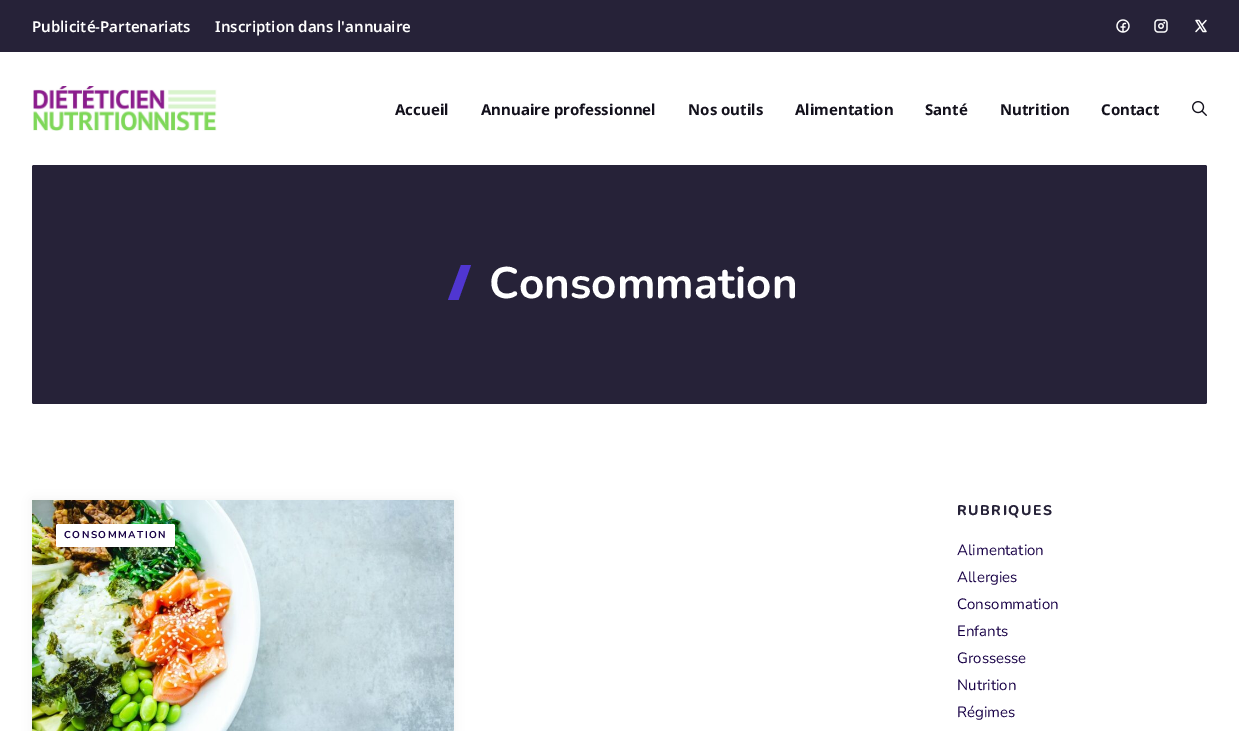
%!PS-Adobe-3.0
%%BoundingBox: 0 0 1239 731
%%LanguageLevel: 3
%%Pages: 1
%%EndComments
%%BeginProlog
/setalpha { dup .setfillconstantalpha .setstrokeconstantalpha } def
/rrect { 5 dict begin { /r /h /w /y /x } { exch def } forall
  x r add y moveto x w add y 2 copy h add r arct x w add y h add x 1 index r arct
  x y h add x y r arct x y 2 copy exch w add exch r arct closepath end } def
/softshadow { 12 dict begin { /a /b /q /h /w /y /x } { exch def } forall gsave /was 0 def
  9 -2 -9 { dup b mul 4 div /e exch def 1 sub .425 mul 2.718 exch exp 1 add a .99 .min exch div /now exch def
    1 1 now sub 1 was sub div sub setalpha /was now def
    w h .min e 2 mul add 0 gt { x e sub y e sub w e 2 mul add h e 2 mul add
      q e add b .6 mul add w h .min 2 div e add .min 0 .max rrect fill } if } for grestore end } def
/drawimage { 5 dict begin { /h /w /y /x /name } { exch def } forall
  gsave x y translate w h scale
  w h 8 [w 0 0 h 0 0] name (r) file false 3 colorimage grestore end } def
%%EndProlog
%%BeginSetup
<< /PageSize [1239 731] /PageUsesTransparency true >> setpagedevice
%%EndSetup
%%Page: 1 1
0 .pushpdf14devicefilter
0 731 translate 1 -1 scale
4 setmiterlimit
1 setgray
0 0 1239 731 rectfill
0.149 0.133 0.22 setrgbcolor
0 0 1239 52 rectfill
(images/1.raw) 1116 19 14 14 drawimage
(images/2.raw) 1154 19 14 14 drawimage
(images/3.raw) 1195 19 12 14 drawimage
(images/4.raw) 33 86 184 45 drawimage
(images/5.raw) 1192 101 15 15 drawimage
32 165 1175 239 2 rrect fill
0.314 0.212 0.82 setrgbcolor
newpath 448 300 moveto 461 265 lineto 471 265 lineto 458.5 300 lineto closepath fill
0 setgray
32 500 422 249 0 6 0.06 softshadow
(images/6.raw) 32 500 422 231 drawimage
1 setgray
56 524 119 23 2 rrect fill
/NotoSans-SemiBold [15 0 0 -15 0 0] selectfont
32 32 moveto (Publicité-Partenariats) show
215 32 moveto (Inscription dans l'annuaire) show
/NotoSans-Bold [15 0 0 -15 0 0] selectfont
0.075 0.067 0.11 setrgbcolor
395 115 moveto (Accueil) show
481 115 moveto (Annuaire professionnel) show
688 115 moveto (Nos outils) show
795 115 moveto (Alimentation) show
925 115 moveto (Santé) show
1000 115 moveto (Nutrition) show
1101 115 moveto (Contact) show
/Nunito-Bold [44 0 0 -44 0 0] selectfont
1 setgray
489 298 moveto (Consommation) show
/Nunito-Bold [10 0 0 -10 0 0] selectfont
0.09 0 0.271 setrgbcolor
64 538 moveto 1.5 0 (CONSOMMATION) ashow
/Nunito-ExtraBold [14 0 0 -14 0 0] selectfont
0.149 0.133 0.22 setrgbcolor
957 515 moveto 1.5 0 (RUBRIQUES) ashow
/Nunito-Regular [15 0 0 -15 0 0] selectfont
0.09 0 0.271 setrgbcolor
957 555 moveto (Alimentation) show
957 582 moveto (Allergies) show
957 609 moveto (Consommation) show
957 636 moveto (Enfants) show
957 663 moveto (Grossesse) show
957 690 moveto (Nutrition) show
957 717 moveto (Régimes) show
.poppdf14devicefilter showpage
%%EOF
